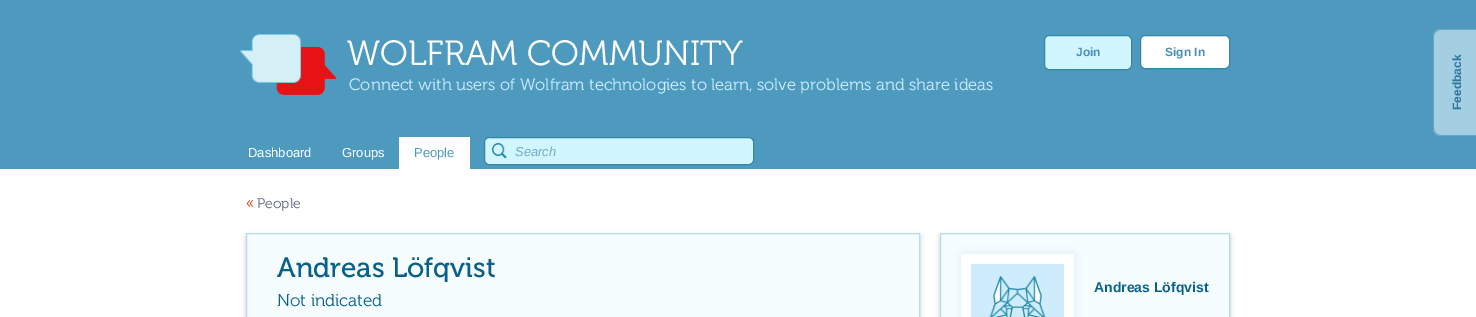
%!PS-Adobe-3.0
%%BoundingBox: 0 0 1476 317
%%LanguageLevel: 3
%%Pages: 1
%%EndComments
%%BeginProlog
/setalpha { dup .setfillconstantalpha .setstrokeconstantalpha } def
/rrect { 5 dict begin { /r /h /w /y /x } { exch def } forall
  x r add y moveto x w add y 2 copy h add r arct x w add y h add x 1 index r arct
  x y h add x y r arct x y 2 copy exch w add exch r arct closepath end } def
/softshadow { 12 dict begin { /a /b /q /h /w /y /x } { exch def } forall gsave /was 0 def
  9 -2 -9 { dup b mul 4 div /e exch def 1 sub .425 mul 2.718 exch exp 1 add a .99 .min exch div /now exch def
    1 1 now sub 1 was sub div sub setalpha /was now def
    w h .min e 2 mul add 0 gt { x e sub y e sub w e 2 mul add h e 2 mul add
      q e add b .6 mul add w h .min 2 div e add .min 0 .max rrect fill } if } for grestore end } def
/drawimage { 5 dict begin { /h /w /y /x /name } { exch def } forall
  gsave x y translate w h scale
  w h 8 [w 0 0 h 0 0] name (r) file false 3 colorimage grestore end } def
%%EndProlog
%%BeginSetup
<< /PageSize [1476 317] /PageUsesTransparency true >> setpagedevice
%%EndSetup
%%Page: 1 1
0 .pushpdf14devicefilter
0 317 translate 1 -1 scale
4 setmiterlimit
1 setgray
0 0 1476 317 rectfill
0.306 0.604 0.749 setrgbcolor
0 0 1476 169 rectfill
(images/1.raw) 240 34 97 61 drawimage
0.82 0.965 1 setrgbcolor
1044.5 35.5 87 34 4.5 rrect gsave fill grestore
0.192 0.529 0.655 setrgbcolor
stroke
1 setgray
1140.5 35.5 89 33 4.5 rrect gsave fill grestore
0.192 0.529 0.655 setrgbcolor
stroke
1 setgray
399 137 71 32 rectfill
0.82 0.965 1 setrgbcolor
484.5 137.5 269 27 4.5 rrect gsave fill grestore
0.192 0.529 0.655 setrgbcolor
stroke
(images/2.raw) 492 143 15 16 drawimage
0.643 0.808 0.882 setrgbcolor
newpath 1433 128 moveto 1433 37 lineto 1433 32 1437 29 1441 29 curveto 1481 29 lineto 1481 136 lineto 1441 136 lineto 1437 136 1433 133 1433 128 curveto closepath fill
0.427 0.639 0.745 setrgbcolor
newpath 1433 128 moveto 1433 37 lineto 1433 32 1437 29 1441 29 curveto 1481 29 lineto 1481 136 lineto 1441 136 lineto 1437 136 1433 133 1433 128 curveto closepath 1434 128 moveto 1434 37 lineto 1434 33 1437 30 1441 30 curveto 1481 30 lineto 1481 135 lineto 1441 135 lineto 1437 135 1434 132 1434 128 curveto closepath eofill
0 setgray
246 236 674 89 0 2.5 0.2 softshadow
0.965 0.992 1 setrgbcolor
newpath 246.5 233.5 moveto 919.5 233.5 lineto 919.5 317.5 lineto 246.5 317.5 lineto closepath gsave fill grestore
0.718 0.859 0.929 setrgbcolor
stroke
0 setgray
940 236 290 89 0 2.5 0.2 softshadow
0.965 0.992 1 setrgbcolor
newpath 940.5 233.5 moveto 1229.5 233.5 lineto 1229.5 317.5 lineto 940.5 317.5 lineto closepath gsave fill grestore
0.718 0.859 0.929 setrgbcolor
stroke
0.867 0.925 0.945 setrgbcolor
961 254 113 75 0 4 1 softshadow
1 setgray
961 254 113 63 rectfill
(images/3.raw) 971 264 93 53 drawimage
/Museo-Light [35 0 0 -35 0 0] selectfont
347 65 moveto (WOLFRAM COMMUNITY) show
/Museo-Light [16.5 0 0 -16.5 0 0] selectfont
0.808 0.933 1 setrgbcolor
349 90 moveto (Connect with users of Wolfram technologies to learn, solve problems and share ideas) show
/LiberationSans-Bold [12 0 0 -12 0 0] selectfont
0.286 0.565 0.706 setrgbcolor
1076 56 moveto (Join) show
1165 56 moveto (Sign In) show
/LiberationSans-Regular [13 0 0 -13 0 0] selectfont
1 setgray
248 157 moveto (Dashboard) show
342 157 moveto (Groups) show
0.306 0.604 0.749 setrgbcolor
414 157 moveto (People) show
/LiberationSans-Italic [13 0 0 -13 0 0] selectfont
0.447 0.667 0.757 setrgbcolor
515 156 moveto (Search) show
/LiberationSans-Bold [12 0 0 -12 0 0] selectfont
0.173 0.471 0.612 setrgbcolor
gsave 1461 110 translate -90 rotate 0 0 moveto (Feedback) show grestore
/Museo-Light [16 0 0 -16 0 0] selectfont
0.878 0.22 0 setrgbcolor
246 208 moveto («) show
/Museo-Light [14 0 0 -14 0 0] selectfont
0.357 0.404 0.49 setrgbcolor
257 208 moveto (People) show
gsave
247 234 672 48 rectclip
/Museo-Regular [28 0 0 -28 0 0] selectfont
0.039 0.376 0.537 setrgbcolor
277 277 moveto (Andreas Löfqvist) show
grestore
/Museo-Light [17 0 0 -17 0 0] selectfont
0.039 0.376 0.537 setrgbcolor
277 306 moveto (Not indicated) show
/LiberationSans-Bold [14 0 0 -14 0 0] selectfont
1094 292 moveto (Andreas Löfqvist) show
.poppdf14devicefilter showpage
%%EOF
